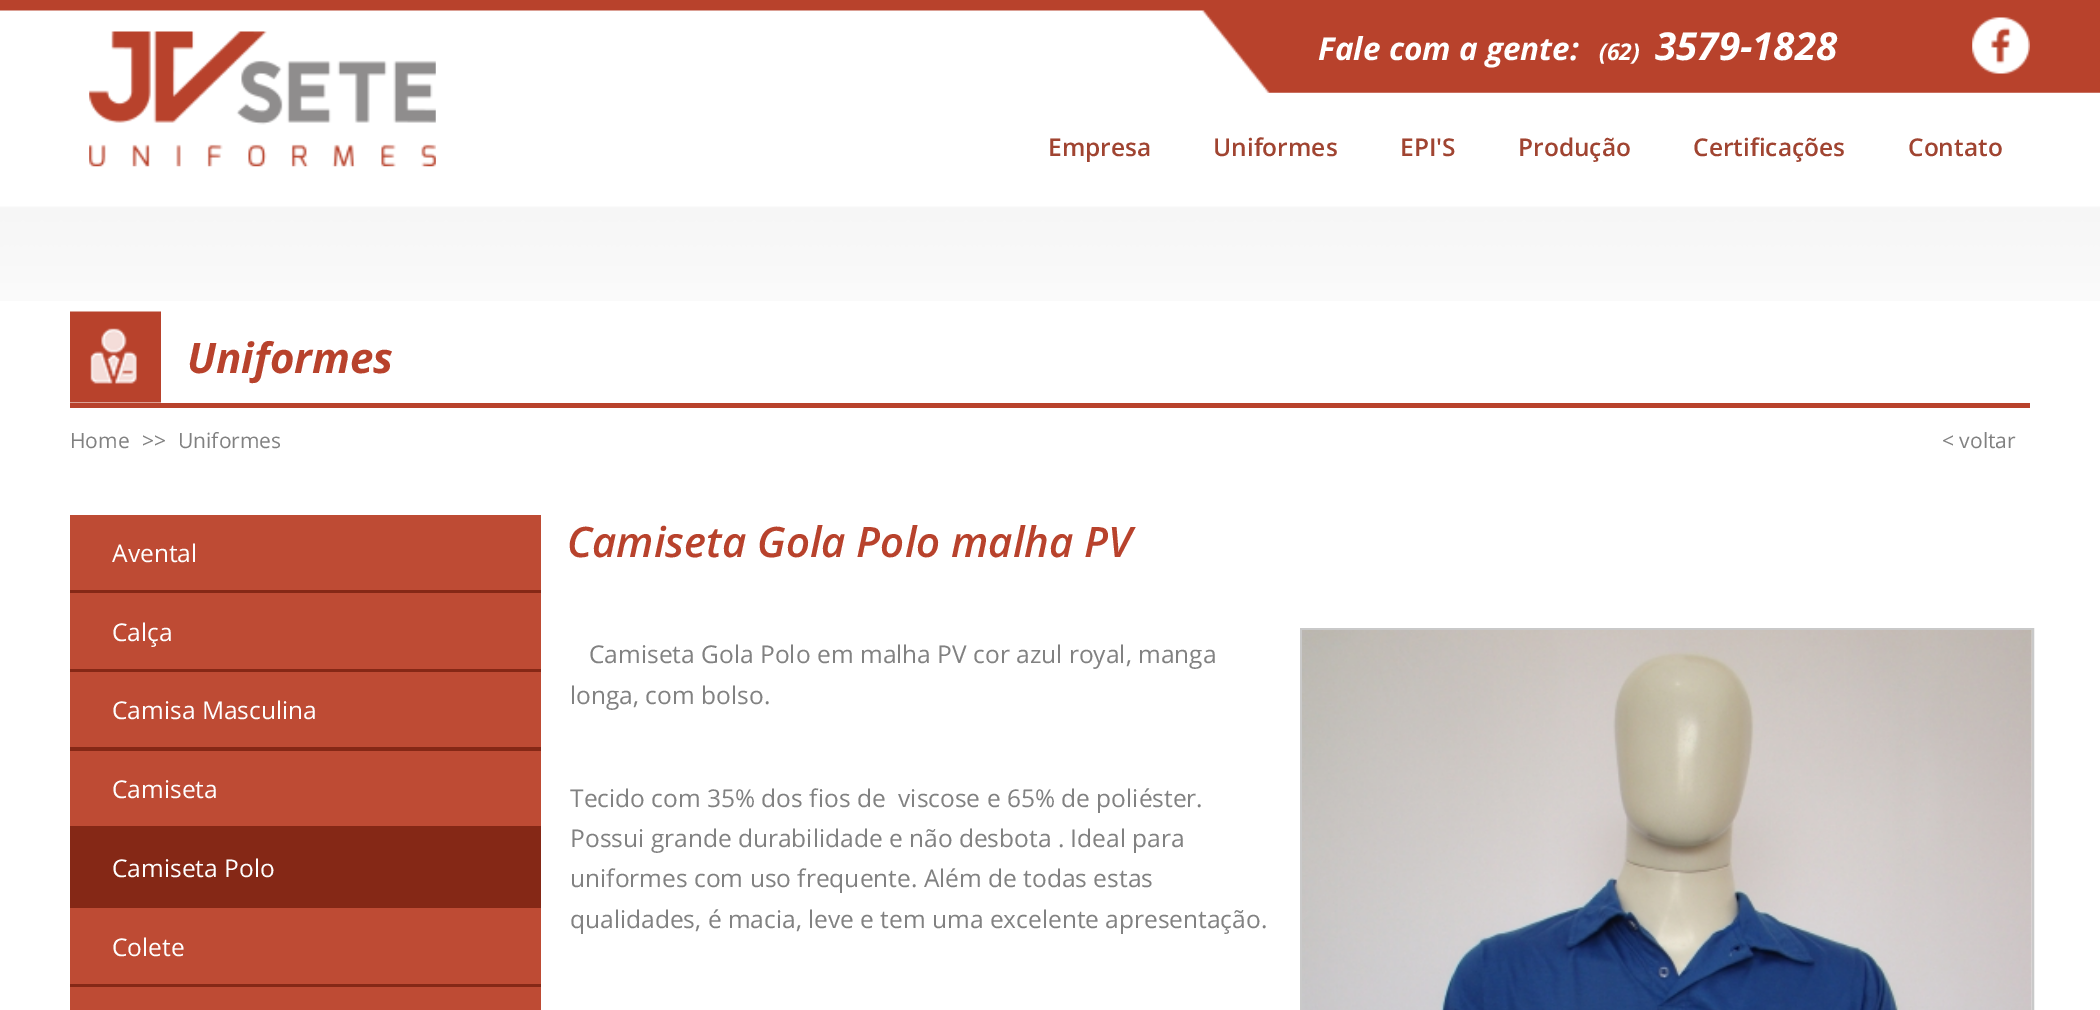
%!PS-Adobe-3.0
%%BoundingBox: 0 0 2100 1010
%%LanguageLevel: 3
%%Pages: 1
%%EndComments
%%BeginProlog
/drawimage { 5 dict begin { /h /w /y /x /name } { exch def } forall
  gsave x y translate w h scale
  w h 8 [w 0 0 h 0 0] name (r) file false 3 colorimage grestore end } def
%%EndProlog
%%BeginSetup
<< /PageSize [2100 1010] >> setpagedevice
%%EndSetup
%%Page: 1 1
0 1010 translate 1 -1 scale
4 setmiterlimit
1 setgray
0 0 2100 1010 rectfill
(images/1.raw) 0 0 2100 93 drawimage
(images/2.raw) 89 31 347 136 drawimage
(images/3.raw) 1972 17 58 57 drawimage
(images/4.raw) 0 206 2100 95 drawimage
0.722 0.259 0.173 setrgbcolor
70 403 1960 5 rectfill
(images/5.raw) 70 311 91 92 drawimage
0.745 0.294 0.204 setrgbcolor
70 515 471 75 rectfill
0.522 0.157 0.086 setrgbcolor
70 590 471 3 rectfill
0.745 0.294 0.204 setrgbcolor
70 593 471 76 rectfill
0.522 0.157 0.086 setrgbcolor
70 669 471 3 rectfill
0.745 0.294 0.204 setrgbcolor
70 672 471 75 rectfill
0.522 0.157 0.086 setrgbcolor
70 747 471 4 rectfill
0.745 0.294 0.204 setrgbcolor
70 751 471 75 rectfill
0.522 0.157 0.086 setrgbcolor
70 826 471 82 rectfill
0.745 0.294 0.204 setrgbcolor
70 908 471 76 rectfill
0.522 0.157 0.086 setrgbcolor
70 984 471 3 rectfill
0.745 0.294 0.204 setrgbcolor
70 987 471 23 rectfill
0.788 setgray
2 setlinewidth
1301 629 732 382 rectstroke
(images/6.raw) 1302 630 730 380 drawimage
/OpenSans-BoldItalic [31.5 0 0 -31.5 0 0] selectfont
1 setgray
1318 60 moveto (Fale com a gente:) show
/OpenSans-BoldItalic [23 0 0 -23 0 0] selectfont
1599 60 moveto (\(62\)) show
/OpenSans-BoldItalic [38.5 0 0 -38.5 0 0] selectfont
1655 60 moveto (3579-1828) show
/OpenSans-SemiBold [24.5 0 0 -24.5 0 0] selectfont
0.627 0.267 0.192 setrgbcolor
1048 156 moveto (Empresa) show
1213 156 moveto (Uniformes) show
1400 156 moveto (EPI'S) show
1518 156 moveto (Produção) show
1693 156 moveto (Certificações) show
1908 156 moveto (Contato) show
/OpenSans-BoldItalic [42 0 0 -42 0 0] selectfont
0.722 0.259 0.173 setrgbcolor
187 373 moveto (Uniformes) show
/OpenSans-Regular [21 0 0 -21 0 0] selectfont
0.506 setgray
70 448 moveto (Home) show
142 448 moveto (>>) show
178 448 moveto (Uniformes) show
1942 448 moveto (< voltar) show
/OpenSans-Regular [24.5 0 0 -24.5 0 0] selectfont
1 setgray
112 562 moveto (Avental) show
112 641 moveto (Calça) show
112 719 moveto (Camisa Masculina) show
112 798 moveto (Camiseta) show
112 877 moveto (Camiseta Polo) show
112 956 moveto (Colete) show
/OpenSans-SemiBoldItalic [42 0 0 -42 0 0] selectfont
0.722 0.259 0.173 setrgbcolor
567 557 moveto (Camiseta Gola Polo malha PV) show
/OpenSans-Regular [24.5 0 0 -24.5 0 0] selectfont
0.506 setgray
589 663 moveto (Camiseta Gola Polo em malha PV cor azul royal, manga) show
570 704 moveto (longa, com bolso.) show
570 807 moveto (Tecido com 35% dos fios de  viscose e 65% de poliéster.) show
570 847 moveto (Possui grande durabilidade e não desbota . Ideal para) show
570 887 moveto (uniformes com uso frequente. Além de todas estas) show
570 928 moveto (qualidades, é macia, leve e tem uma excelente apresentação.) show
showpage
%%EOF
